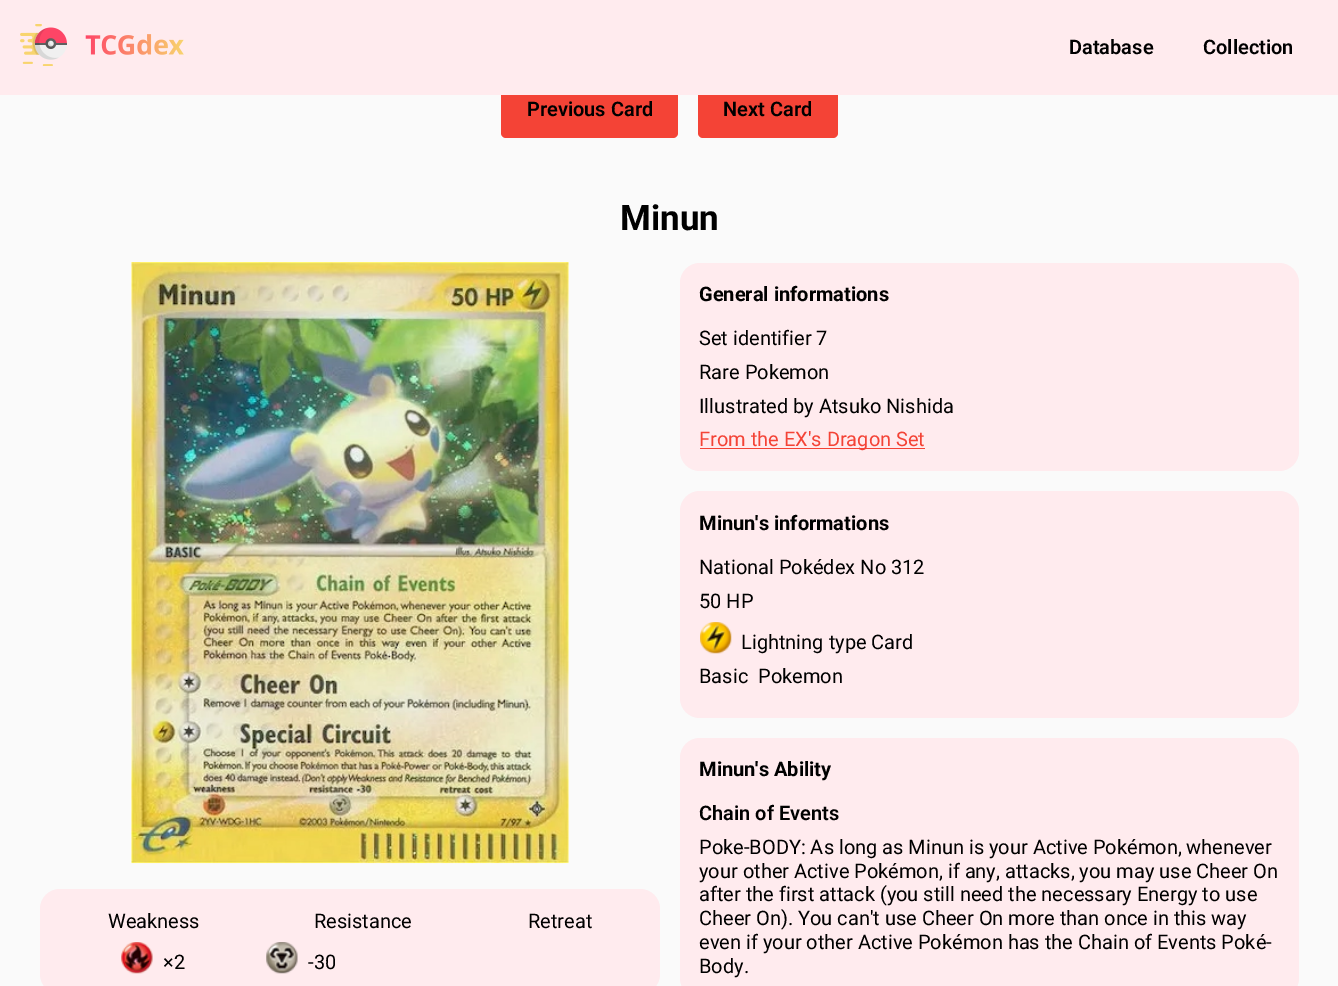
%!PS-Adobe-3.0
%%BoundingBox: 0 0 1338 986
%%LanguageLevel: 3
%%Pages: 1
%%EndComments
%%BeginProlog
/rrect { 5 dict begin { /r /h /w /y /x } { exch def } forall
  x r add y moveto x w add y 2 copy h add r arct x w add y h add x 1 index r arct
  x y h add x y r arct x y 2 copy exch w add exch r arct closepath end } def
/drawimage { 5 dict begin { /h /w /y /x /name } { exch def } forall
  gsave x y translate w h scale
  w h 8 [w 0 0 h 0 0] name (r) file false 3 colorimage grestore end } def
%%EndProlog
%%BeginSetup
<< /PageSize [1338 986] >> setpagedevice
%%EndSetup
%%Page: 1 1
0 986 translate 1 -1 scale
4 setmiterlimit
0.98 setgray
0 0 1338 986 rectfill
0.957 0.263 0.212 setrgbcolor
501 83 177 55 5 rrect fill
698 83 140 55 5 rrect fill
1 0.922 0.933 setrgbcolor
0 0 1338 95 rectfill
(images/1.raw) 20 24 164 42 drawimage
(images/2.raw) 131 262 438 602 drawimage
40 889 620 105 20 rrect fill
(images/3.raw) 121 942 32 32 drawimage
(images/4.raw) 266 942 32 32 drawimage
680 263 619 208 20 rrect fill
0.957 0.263 0.212 setrgbcolor
700 448 225 1 rectfill
1 0.922 0.933 setrgbcolor
680 491 619 227 20 rrect fill
(images/5.raw) 700 622 32 32 drawimage
680 738 619 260 20 rrect fill
/Roboto-SemiBold [20 0 0 -20 0 0] selectfont
0 setgray
1069 54 moveto (Database) show
1203 54 moveto (Collection) show
527 116 moveto (Previous Card) show
723 116 moveto (Next Card) show
/Roboto-Bold [35 0 0 -35 0 0] selectfont
620 230 moveto (Minun) show
/Roboto-Regular [20 0 0 -20 0 0] selectfont
108 928 moveto (Weakness) show
163 969 moveto (×2) show
314 928 moveto (Resistance) show
308 969 moveto (-30) show
528 928 moveto (Retreat) show
/Roboto-Bold [20 0 0 -20 0 0] selectfont
699 301 moveto (General informations) show
/Roboto-Regular [20 0 0 -20 0 0] selectfont
699 345 moveto (Set identifier 7) show
699 379 moveto (Rare Pokemon) show
699 413 moveto (Illustrated by Atsuko Nishida) show
0.957 0.263 0.212 setrgbcolor
699 446 moveto (From the EX's Dragon Set) show
/Roboto-Bold [20 0 0 -20 0 0] selectfont
0 setgray
699 530 moveto (Minun's informations) show
/Roboto-Regular [20 0 0 -20 0 0] selectfont
699 574 moveto (National Pokédex No 312) show
699 608 moveto (50 HP) show
741 649 moveto (Lightning type Card) show
699 683 moveto (Basic) show
758 683 moveto (Pokemon) show
/Roboto-Bold [20 0 0 -20 0 0] selectfont
699 776 moveto (Minun's Ability) show
/Roboto-SemiBold [20 0 0 -20 0 0] selectfont
699 820 moveto (Chain of Events) show
/Roboto-Regular [20 0 0 -20 0 0] selectfont
699 854 moveto (Poke-BODY: As long as Minun is your Active Pokémon, whenever) show
699 878 moveto (your other Active Pokémon, if any, attacks, you may use Cheer On) show
699 901 moveto (after the first attack \(you still need the necessary Energy to use) show
699 925 moveto (Cheer On\). You can't use Cheer On more than once in this way) show
699 949 moveto (even if your other Active Pokémon has the Chain of Events Poké-) show
699 973 moveto (Body.) show
showpage
%%EOF
